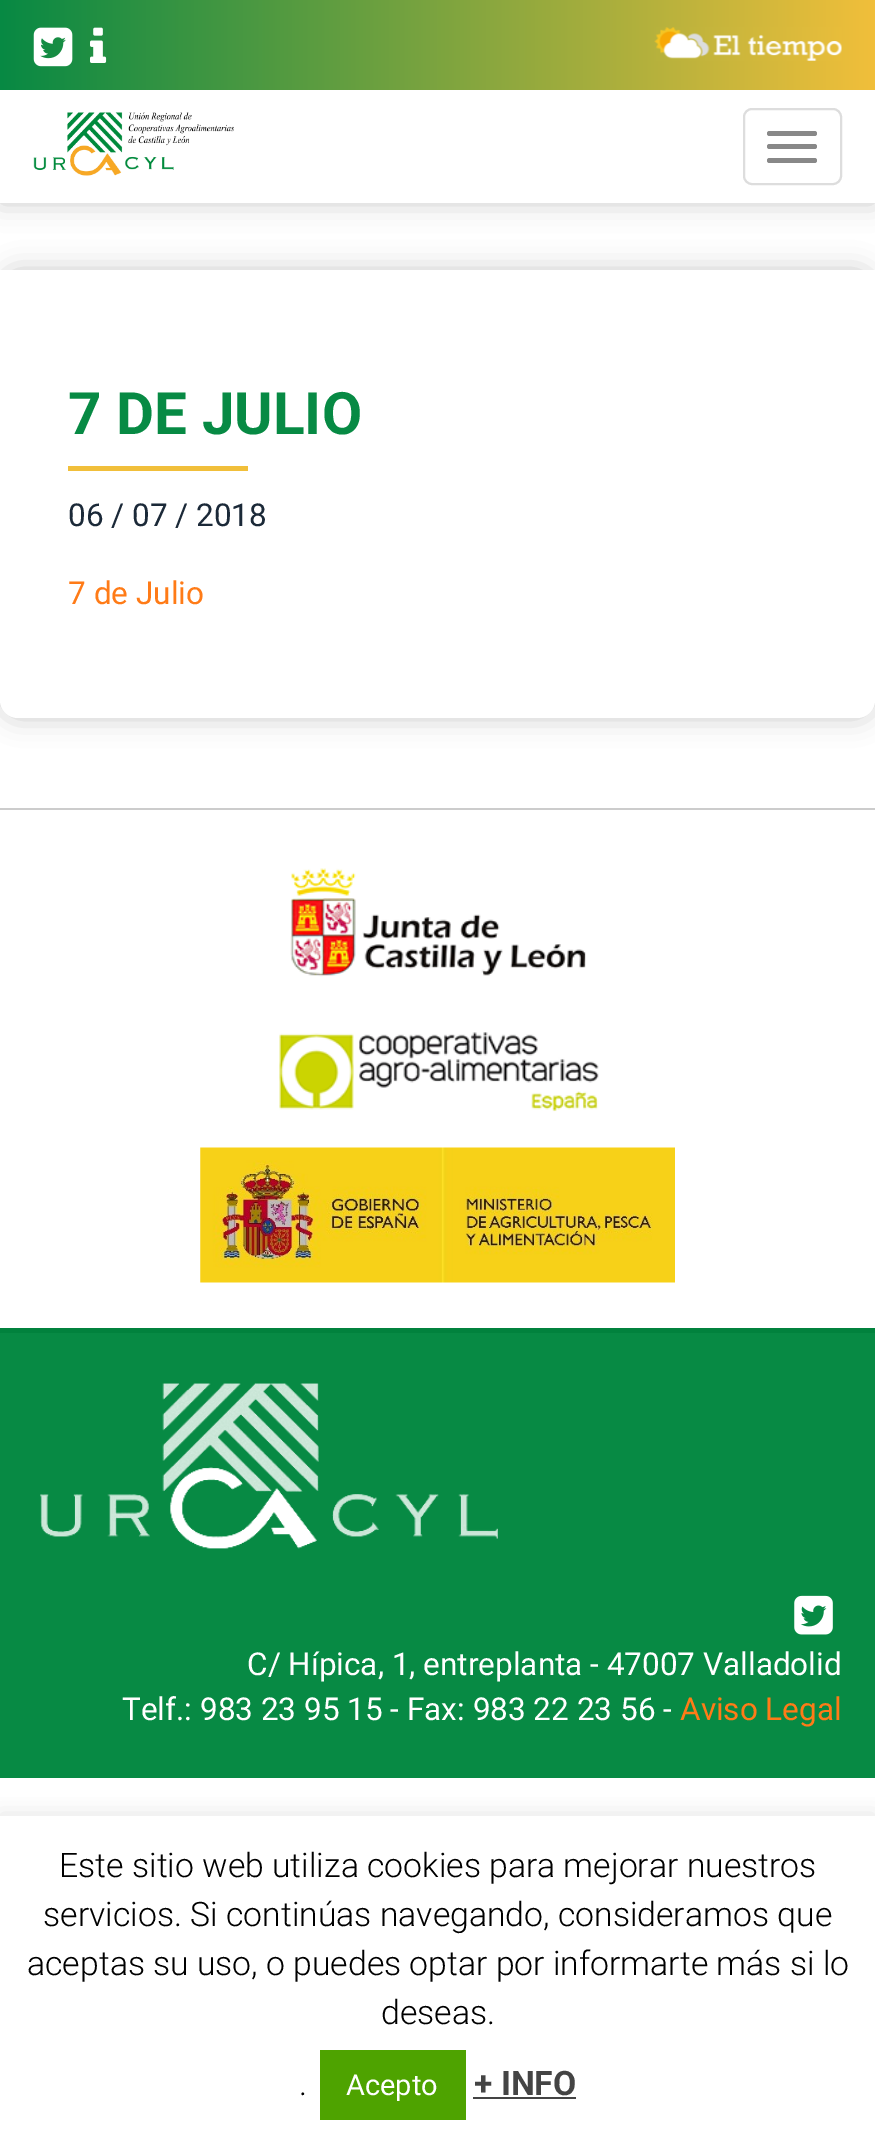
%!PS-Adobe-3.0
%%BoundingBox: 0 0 875 2145
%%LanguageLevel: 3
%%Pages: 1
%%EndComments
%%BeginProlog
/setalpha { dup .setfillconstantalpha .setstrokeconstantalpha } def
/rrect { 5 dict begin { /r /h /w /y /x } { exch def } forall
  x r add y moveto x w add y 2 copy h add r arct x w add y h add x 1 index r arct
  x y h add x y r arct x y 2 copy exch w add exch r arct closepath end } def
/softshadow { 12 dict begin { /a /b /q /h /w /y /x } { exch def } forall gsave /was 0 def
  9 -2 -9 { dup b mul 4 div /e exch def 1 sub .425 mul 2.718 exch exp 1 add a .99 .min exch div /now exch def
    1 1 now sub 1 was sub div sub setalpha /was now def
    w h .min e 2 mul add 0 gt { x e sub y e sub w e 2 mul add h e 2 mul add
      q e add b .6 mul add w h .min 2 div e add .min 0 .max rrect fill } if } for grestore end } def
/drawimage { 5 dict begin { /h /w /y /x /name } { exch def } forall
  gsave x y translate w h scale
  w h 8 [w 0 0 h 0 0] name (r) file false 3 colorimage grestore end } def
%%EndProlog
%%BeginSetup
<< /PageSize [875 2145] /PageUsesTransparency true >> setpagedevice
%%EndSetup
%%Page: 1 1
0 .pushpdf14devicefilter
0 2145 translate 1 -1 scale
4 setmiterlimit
1 setgray
0 0 875 2145 rectfill
0 setgray
0 0 875 203 0 13.5 0.2 softshadow
1 setgray
0 90 875 113 rectfill
gsave newpath 0 0 moveto 875 0 lineto 875 90 lineto 0 90 lineto closepath clip newpath
<< /ShadingType 2 /ColorSpace /DeviceRGB /Coords [0 45 875 45] /Extend [true true] /Function << /FunctionType 2 /Domain [0 1] /C0 [0.027 0.537 0.267] /C1 [0.945 0.749 0.227] /N 1 >> >> shfill grestore
(images/1.raw) 33 27 40 40 drawimage
(images/2.raw) 90 27 17 36 drawimage
(images/3.raw) 654 27 188 34 drawimage
(images/4.raw) 33 112 201 64 drawimage
0.867 setgray
2 setlinewidth
744 109 97 75 8 rrect stroke
0.533 setgray
767 131 50 5 2.5 rrect fill
767 144 50 5 2.5 rrect fill
767 158 50 5 2.5 rrect fill
0 setgray
0 270 875 448 18 13.5 0.2 softshadow
1 setgray
newpath 0 270 moveto 875 270 lineto 875 700 lineto 875 710 867 718 857 718 curveto 18 718 lineto 8 718 0 710 0 700 curveto closepath fill
0.945 0.749 0.227 setrgbcolor
68 466 180 5 rectfill
0.8 setgray
0 808 875 2 rectfill
(images/5.raw) 290 868 296 109 drawimage
(images/6.raw) 279 1032 320 80 drawimage
(images/7.raw) 200 1147 475 136 drawimage
0.027 0.541 0.267 setrgbcolor
0 1333 875 445 rectfill
0.004 0.51 0.239 setrgbcolor
0 1328 875 5 rectfill
(images/8.raw) 40 1383 458 166 drawimage
(images/9.raw) 794 1595 39 40 drawimage
gsave
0 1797 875 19 rectclip
0.675 0.671 0.671 setrgbcolor
0 1814 875 330 0 11 0.3 softshadow
grestore
0.306 0.639 0 setrgbcolor
320 2050 146 70 rectfill
0.267 setgray
473 2097 103 2 rectfill
/Roboto-Bold [58.5 0 0 -58.5 0 0] selectfont
0.027 0.541 0.267 setrgbcolor
68 434 moveto (7 DE JULIO) show
/Roboto-Regular [31.5 0 0 -31.5 0 0] selectfont
0.106 0.161 0.22 setrgbcolor
68 526 moveto (06 / 07 / 2018) show
1 0.482 0.09 setrgbcolor
68 604 moveto (7 de Julio) show
1 setgray
247 1675 moveto (C/ Hípica, 1, entreplanta - 47007 Valladolid) show
122 1720 moveto (Telf.: 983 23 95 15 - Fax: 983 22 23 56 -) show
1 0.482 0.09 setrgbcolor
680 1720 moveto (Aviso Legal) show
/Roboto-Light [33.75 0 0 -33.75 0 0] selectfont
0 setgray
59 1877 moveto (Este sitio web utiliza cookies para mejorar nuestros) show
43 1926 moveto (servicios. Si continúas navegando, consideramos que) show
27 1975 moveto (aceptas su uso, o puedes optar por informarte más si lo) show
381 2024 moveto (deseas.) show
299 2095 moveto (.) show
/Roboto-Regular [29 0 0 -29 0 0] selectfont
1 setgray
346 2095 moveto (Acepto) show
/Roboto-Bold [33.75 0 0 -33.75 0 0] selectfont
0.267 setgray
474 2095 moveto (+ INFO) show
.poppdf14devicefilter showpage
%%EOF
